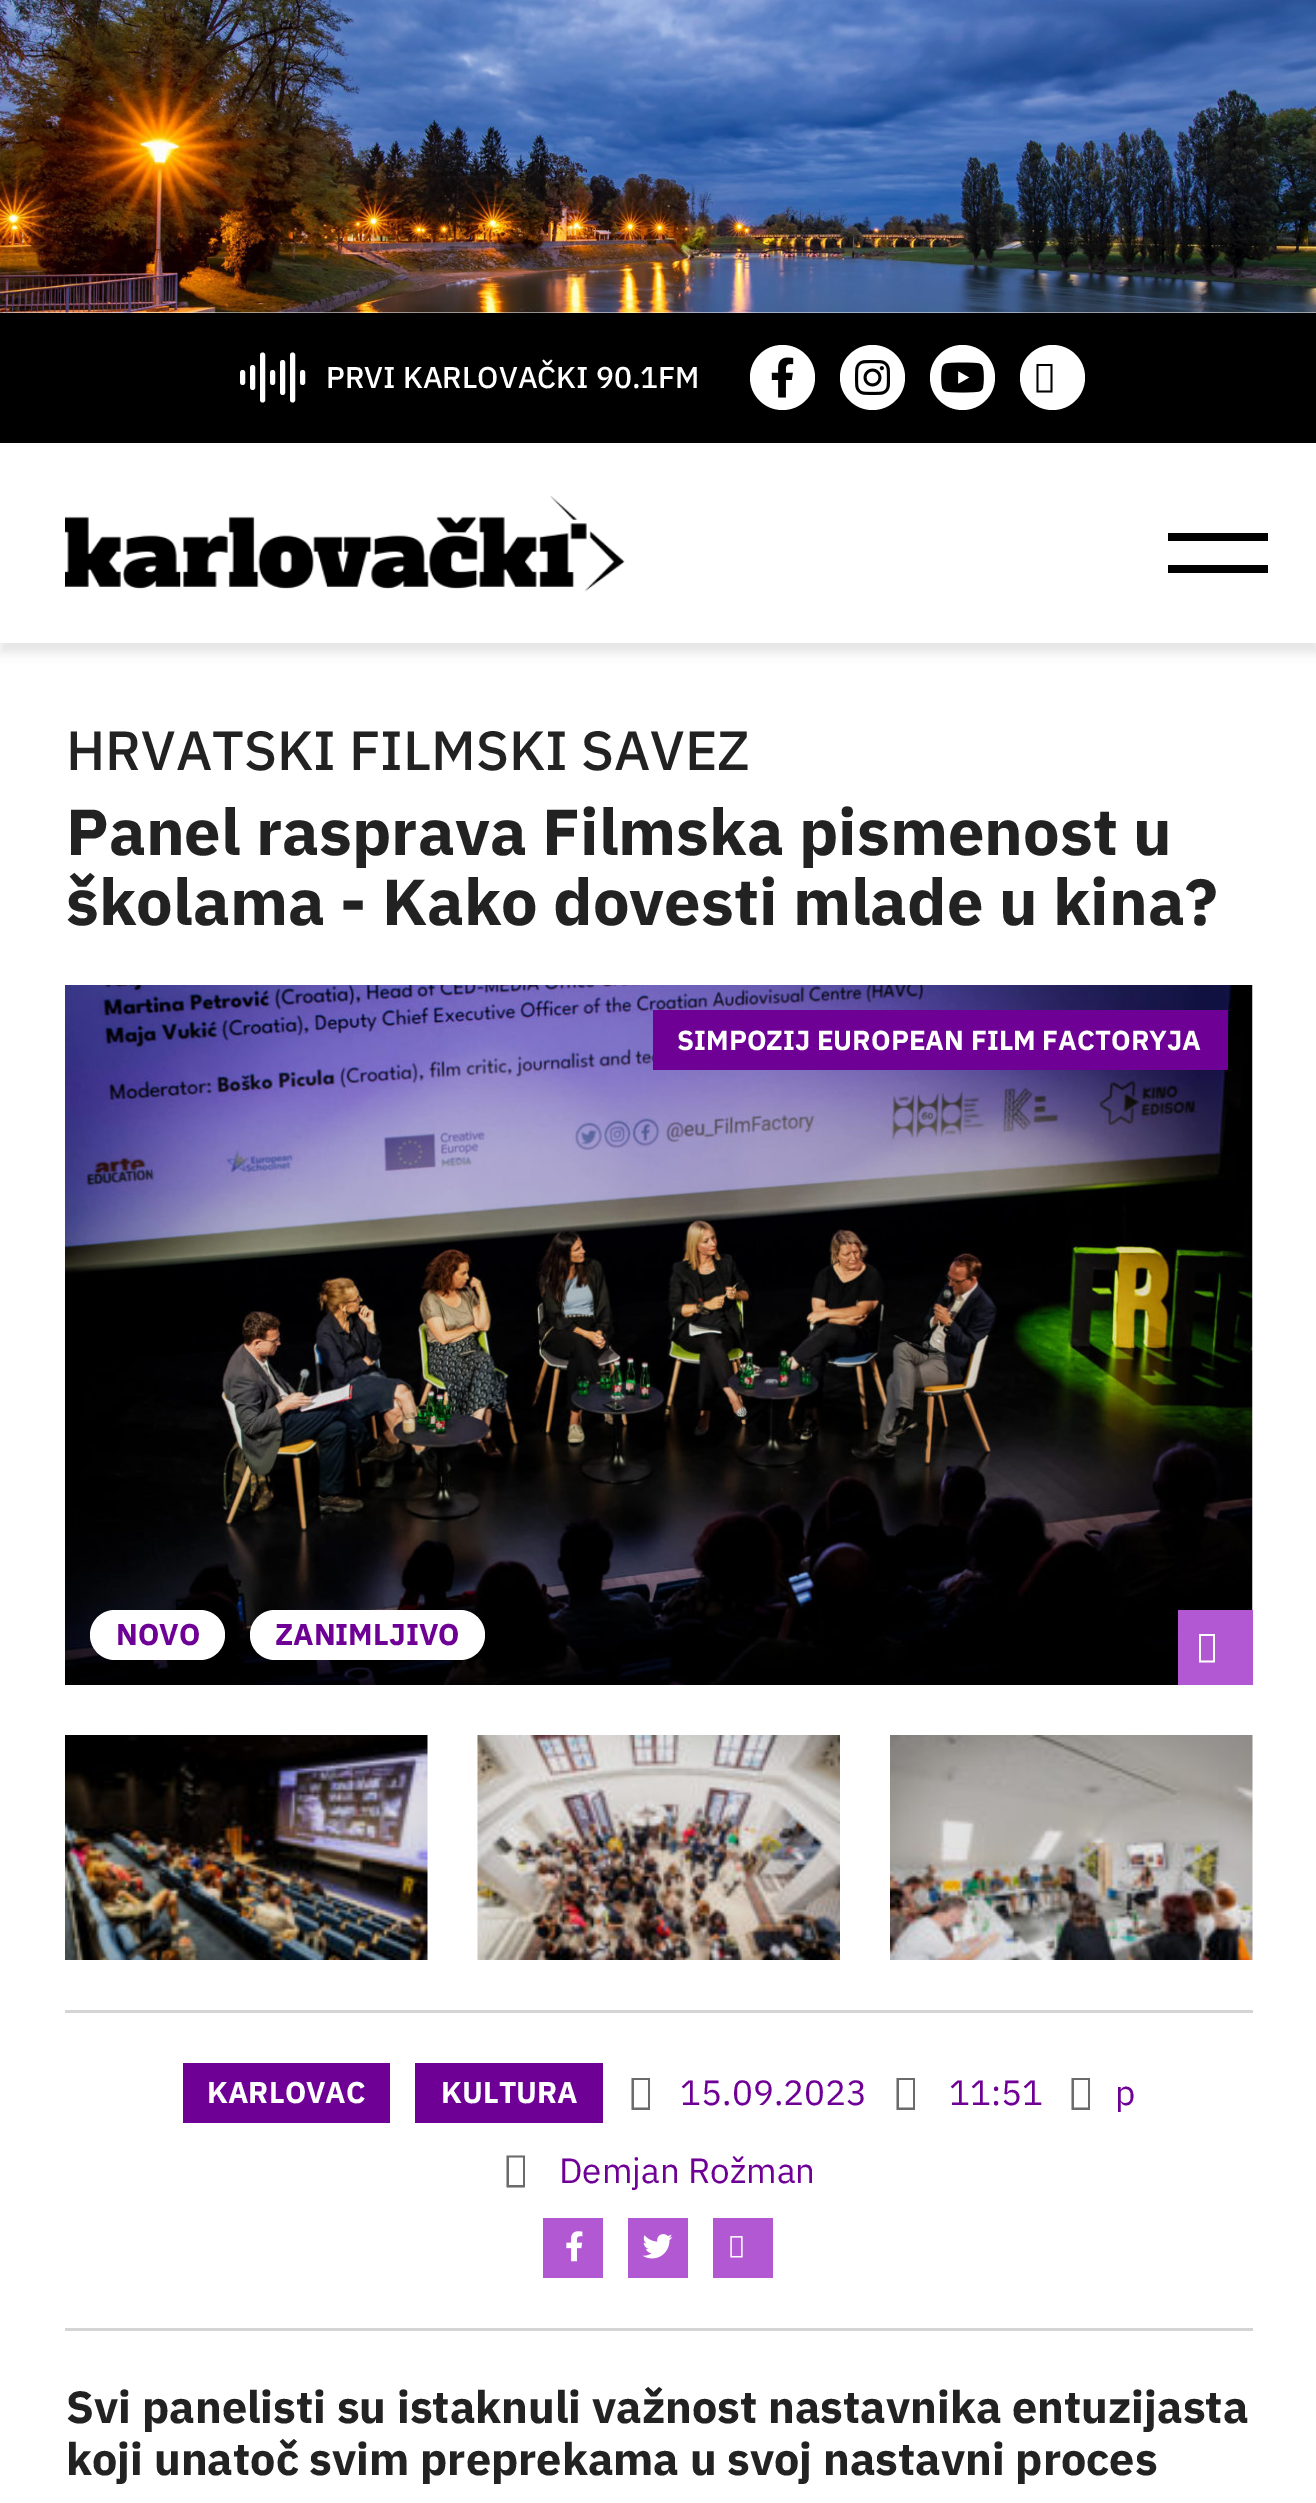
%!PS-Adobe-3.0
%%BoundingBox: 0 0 1316 2503
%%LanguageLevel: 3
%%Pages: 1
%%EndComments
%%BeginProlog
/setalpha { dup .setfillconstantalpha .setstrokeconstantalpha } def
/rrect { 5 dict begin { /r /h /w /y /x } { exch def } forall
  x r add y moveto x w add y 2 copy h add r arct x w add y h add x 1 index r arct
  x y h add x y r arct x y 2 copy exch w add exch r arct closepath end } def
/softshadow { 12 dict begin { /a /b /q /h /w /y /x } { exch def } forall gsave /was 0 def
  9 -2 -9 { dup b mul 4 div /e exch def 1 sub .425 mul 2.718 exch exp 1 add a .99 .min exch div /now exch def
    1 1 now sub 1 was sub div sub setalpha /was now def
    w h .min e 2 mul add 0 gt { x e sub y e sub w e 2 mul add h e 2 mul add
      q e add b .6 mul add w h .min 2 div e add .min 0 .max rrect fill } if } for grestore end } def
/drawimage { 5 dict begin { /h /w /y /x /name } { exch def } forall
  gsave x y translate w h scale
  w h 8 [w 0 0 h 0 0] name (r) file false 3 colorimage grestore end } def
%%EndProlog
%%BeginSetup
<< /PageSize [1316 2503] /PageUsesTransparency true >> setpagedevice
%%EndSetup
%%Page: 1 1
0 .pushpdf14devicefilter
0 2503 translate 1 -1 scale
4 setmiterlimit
1 setgray
0 0 1316 2503 rectfill
(images/1.raw) 0 0 1316 313 drawimage
0 setgray
0 313 1316 130 rectfill
1 setgray
5 setlinewidth
1 setlinecap
1 setlinejoin
newpath 242.5 372.5 moveto 242.5 382.5 lineto 252.5 367.5 moveto 252.5 387.5 lineto 262.5 355 moveto 262.5 400 lineto 272.5 372.5 moveto 272.5 382.5 lineto 282.5 362.5 moveto 282.5 392.5 lineto 292.5 355 moveto 292.5 400 lineto 302.5 372.5 moveto 302.5 382.5 lineto stroke
newpath 782.5 377.5 32.5 0 360 arc closepath fill
(images/2.raw) 771 357 23 41 drawimage
newpath 872.5 377.5 32.5 0 360 arc closepath fill
(images/3.raw) 855 360 35 35 drawimage
newpath 962.5 377.5 32.5 0 360 arc closepath fill
(images/4.raw) 941 362 43 31 drawimage
newpath 1052.5 377.5 32.5 0 360 arc closepath fill
0 setgray
newpath 1036.5 392.5 moveto 1036.5 364 lineto 1052.5 364 lineto 1052.5 392.5 lineto closepath 1038.5 390.5 moveto 1050.5 390.5 lineto 1050.5 366 lineto 1038.5 366 lineto closepath fill
0 453 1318 200 0 5 0.1 softshadow
1 setgray
0 447 1316 196 rectfill
(images/5.raw) 65 496 560 96 drawimage
0 setgray
1168 533 100 8 rectfill
1168 565 100 8 rectfill
(images/6.raw) 65 985 1188 700 drawimage
0.435 0 0.588 setrgbcolor
653 1010 575 60 rectfill
1 setgray
90 1610 135 50 25 rrect fill
250 1610 235 50 25 rrect fill
0.702 0.345 0.827 setrgbcolor
1178 1610 75 75 rectfill
1 setgray
newpath 1199 1662.5 moveto 1199 1634 lineto 1215 1634 lineto 1215 1662.5 lineto closepath 1201 1660.5 moveto 1213 1660.5 lineto 1213 1636 lineto 1201 1636 lineto closepath fill
(images/7.raw) 65 1735 363 225 drawimage
(images/8.raw) 477 1735 363 225 drawimage
(images/9.raw) 890 1735 363 225 drawimage
0.831 setgray
65 2010 1188 3 rectfill
65 2328 1188 3 rectfill
0.435 0 0.588 setrgbcolor
183 2063 207 60 rectfill
415 2063 188 60 rectfill
0.42 setgray
newpath 631.5 2110 moveto 631.5 2078 lineto 650 2078 lineto 650 2110 lineto closepath 634 2107.5 moveto 648 2107.5 lineto 648 2080 lineto 634 2080 lineto closepath fill
newpath 896.5 2110 moveto 896.5 2078 lineto 915 2078 lineto 915 2110 lineto closepath 899 2107.5 moveto 913 2107.5 lineto 913 2080 lineto 899 2080 lineto closepath fill
newpath 1071.5 2110 moveto 1071.5 2078 lineto 1090 2078 lineto 1090 2110 lineto closepath 1074 2107.5 moveto 1088 2107.5 lineto 1088 2080 lineto 1074 2080 lineto closepath fill
newpath 506.5 2187.5 moveto 506.5 2155.5 lineto 525 2155.5 lineto 525 2187.5 lineto closepath 509 2185 moveto 523 2185 lineto 523 2157.5 lineto 509 2157.5 lineto closepath fill
0.702 0.345 0.827 setrgbcolor
543 2218 60 60 rectfill
(images/10.raw) 566 2231 17 31 drawimage
628 2218 60 60 rectfill
(images/11.raw) 642 2234 31 25 drawimage
713 2218 60 60 rectfill
(images/12.raw) 730 2236 13 22 drawimage
/IBMPlexSans-Medium [30 0 0 -30 0 0] selectfont
1 setgray
326 388 moveto (PRVI KARLOVAČKI 90.1FM) show
/IBMPlexSans-Medium [55 0 0 -55 0 0] selectfont
0.133 setgray
66 770 moveto (HRVATSKI FILMSKI SAVEZ) show
/IBMPlexSans-Bold [65 0 0 -65 0 0] selectfont
66 855 moveto (Panel rasprava Filmska pismenost u) show
66 925 moveto (školama - Kako dovesti mlade u kina?) show
/IBMPlexSans-Bold [27.5 0 0 -27.5 0 0] selectfont
1 setgray
677 1050 moveto (SIMPOZIJ EUROPEAN FILM FACTORYJA) show
/IBMPlexSans-Bold [30 0 0 -30 0 0] selectfont
0.435 0 0.588 setrgbcolor
116 1645 moveto (NOVO) show
275 1645 moveto (ZANIMLJIVO) show
1 setgray
207 2103 moveto (KARLOVAC) show
441 2103 moveto (KULTURA) show
/IBMPlexSans-Regular [35 0 0 -35 0 0] selectfont
0.435 0 0.588 setrgbcolor
680 2105 moveto (15.09.2023) show
949 2105 moveto (11:51) show
1115 2105 moveto (p) show
559 2183 moveto (Demjan Rožman) show
/IBMPlexSans-Bold [45 0 0 -45 0 0] selectfont
0.133 setgray
66 2423 moveto (Svi panelisti su istaknuli važnost nastavnika entuzijasta) show
66 2475 moveto (koji unatoč svim preprekama u svoj nastavni proces) show
.poppdf14devicefilter showpage
%%EOF
